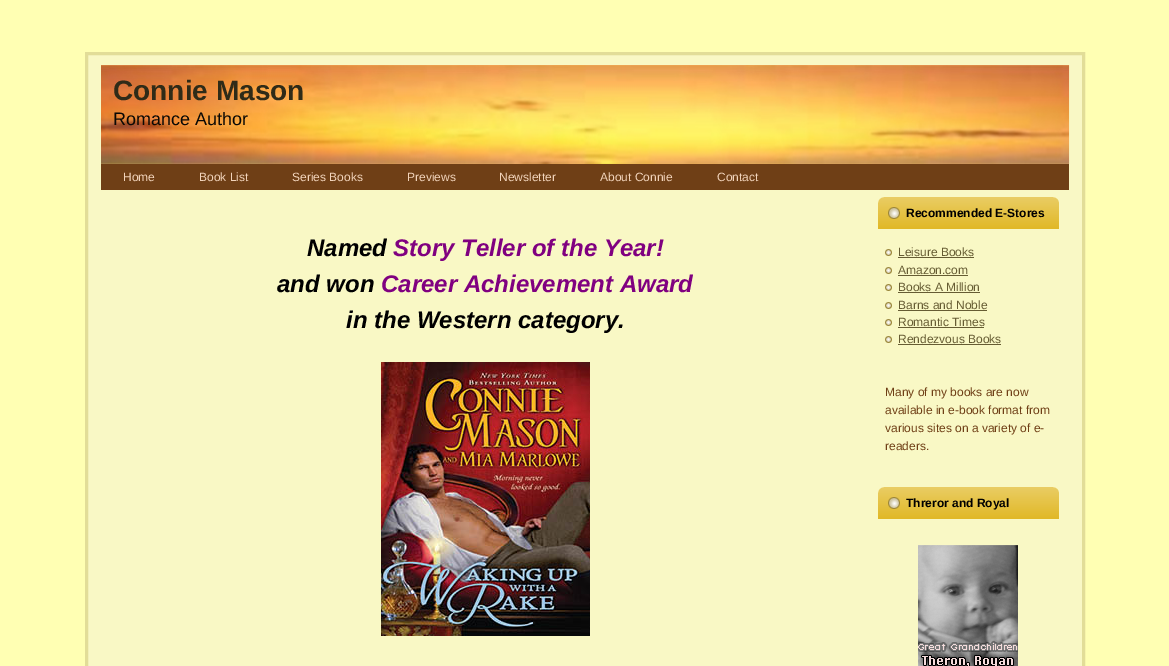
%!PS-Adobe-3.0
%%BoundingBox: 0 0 1169 666
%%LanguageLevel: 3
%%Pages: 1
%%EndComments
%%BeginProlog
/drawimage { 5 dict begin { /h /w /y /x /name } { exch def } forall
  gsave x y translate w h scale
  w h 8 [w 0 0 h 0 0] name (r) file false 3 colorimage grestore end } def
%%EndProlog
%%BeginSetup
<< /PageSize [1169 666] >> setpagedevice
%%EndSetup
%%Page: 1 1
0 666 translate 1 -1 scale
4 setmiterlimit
1 1 0.702 setrgbcolor
0 0 1169 666 rectfill
0.976 0.973 0.773 setrgbcolor
newpath 86.5 53.5 moveto 1083.5 53.5 lineto 1083.5 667.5 lineto 86.5 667.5 lineto closepath gsave fill grestore
0.886 0.867 0.596 setrgbcolor
3 setlinewidth
stroke
(images/1.raw) 101 65 969 99 drawimage
0.435 0.247 0.086 setrgbcolor
101 164 968 26 rectfill
(images/2.raw) 381 362 209 274 drawimage
(images/3.raw) 878 197 159 32 drawimage
(images/4.raw) 1037 197 22 32 drawimage
(images/5.raw) 885 249 7 7 drawimage
0.4 0.361 0.2 setrgbcolor
898 257 76 1 rectfill
(images/5.raw) 885 267 7 7 drawimage
898 275 70 1 rectfill
(images/5.raw) 885 284 7 7 drawimage
898 292 82 1 rectfill
(images/5.raw) 885 302 7 7 drawimage
898 310 89 1 rectfill
(images/5.raw) 885 319 7 7 drawimage
898 327 86 1 rectfill
(images/5.raw) 885 336 7 7 drawimage
898 344 103 1 rectfill
(images/3.raw) 878 487 159 32 drawimage
(images/4.raw) 1037 487 22 32 drawimage
(images/6.raw) 918 545 100 121 drawimage
/LiberationSans-Bold [28 0 0 -28 0 0] selectfont
0.184 0.169 0.094 setrgbcolor
113 100 moveto (Connie Mason) show
/LiberationSans-Regular [18 0 0 -18 0 0] selectfont
0.039 0.035 0.02 setrgbcolor
113 125 moveto (Romance Author) show
/LiberationSans-Regular [12 0 0 -12 0 0] selectfont
0.949 0.831 0.733 setrgbcolor
123 181 moveto (Home) show
199 181 moveto (Book List) show
292 181 moveto (Series Books) show
407 181 moveto (Previews) show
499 181 moveto (Newsletter) show
600 181 moveto (About Connie) show
717 181 moveto (Contact) show
/LiberationSans-BoldItalic [24 0 0 -24 0 0] selectfont
0 setgray
307 256 moveto (Named) show
0.502 0 0.502 setrgbcolor
393 256 moveto (Story Teller of the Year!) show
0 setgray
277 292 moveto (and won) show
0.502 0 0.502 setrgbcolor
381 292 moveto (Career Achievement Award) show
0 setgray
346 328 moveto (in the Western category.) show
/LiberationSans-Bold [12 0 0 -12 0 0] selectfont
906 217 moveto (Recommended E-Stores) show
/LiberationSans-Regular [12 0 0 -12 0 0] selectfont
0.4 0.361 0.2 setrgbcolor
898 256 moveto (Leisure Books) show
898 274 moveto (Amazon.com) show
898 291 moveto (Books A Million) show
898 309 moveto (Barns and Noble) show
898 326 moveto (Romantic Times) show
898 343 moveto (Rendezvous Books) show
0.435 0.247 0.086 setrgbcolor
885 396 moveto (Many of my books are now) show
885 414 moveto (available in e-book format from) show
885 432 moveto (various sites on a variety of e-) show
885 450 moveto (readers.) show
/LiberationSans-Bold [12 0 0 -12 0 0] selectfont
0 setgray
906 507 moveto (Threror and Royal) show
showpage
%%EOF
